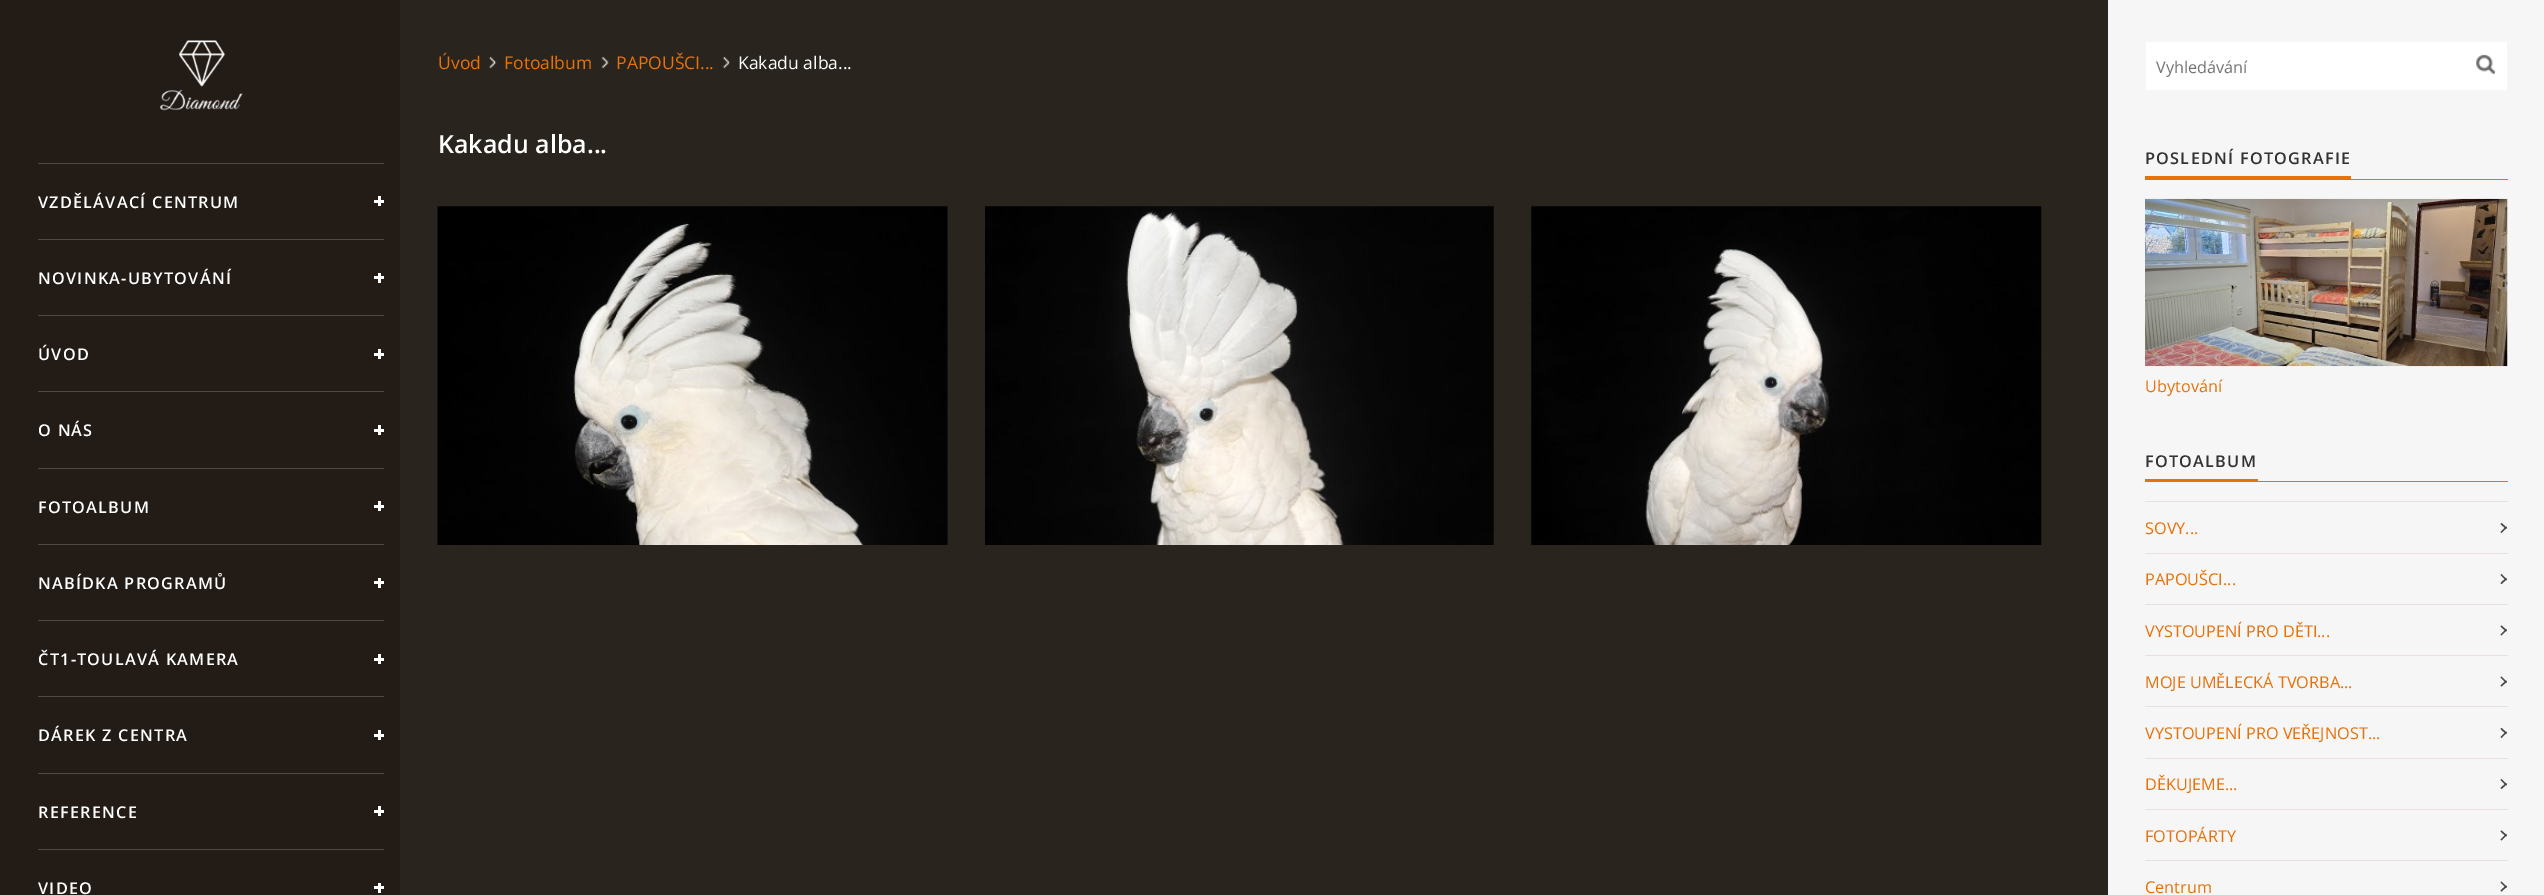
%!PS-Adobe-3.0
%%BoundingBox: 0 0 2544 895
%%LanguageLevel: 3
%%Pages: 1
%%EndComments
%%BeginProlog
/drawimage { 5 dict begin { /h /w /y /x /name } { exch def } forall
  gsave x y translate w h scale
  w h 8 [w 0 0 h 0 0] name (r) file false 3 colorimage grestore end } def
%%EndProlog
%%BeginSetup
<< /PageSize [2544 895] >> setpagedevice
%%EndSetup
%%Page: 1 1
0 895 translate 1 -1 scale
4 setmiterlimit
0.161 0.141 0.118 setrgbcolor
0 0 2544 895 rectfill
0.133 0.106 0.086 setrgbcolor
0 0 400 895 rectfill
(images/1.raw) 160 40 83 71 drawimage
0.306 0.286 0.271 setrgbcolor
38 163 346 1 rectfill
1 setgray
374 200 10 3 rectfill
378 196 3 10 rectfill
0.306 0.286 0.271 setrgbcolor
38 239 346 1 rectfill
1 setgray
374 276 10 3 rectfill
378 273 3 10 rectfill
0.306 0.286 0.271 setrgbcolor
38 315 346 1 rectfill
1 setgray
374 353 10 3 rectfill
378 349 3 10 rectfill
0.306 0.286 0.271 setrgbcolor
38 391 346 1 rectfill
1 setgray
374 429 10 3 rectfill
378 425 3 10 rectfill
0.306 0.286 0.271 setrgbcolor
38 468 346 1 rectfill
1 setgray
374 505 10 3 rectfill
378 501 3 10 rectfill
0.306 0.286 0.271 setrgbcolor
38 544 346 1 rectfill
1 setgray
374 581 10 3 rectfill
378 578 3 10 rectfill
0.306 0.286 0.271 setrgbcolor
38 620 346 1 rectfill
1 setgray
374 658 10 3 rectfill
378 654 3 10 rectfill
0.306 0.286 0.271 setrgbcolor
38 696 346 1 rectfill
1 setgray
374 734 10 3 rectfill
378 730 3 10 rectfill
0.306 0.286 0.271 setrgbcolor
38 773 346 1 rectfill
1 setgray
374 810 10 3 rectfill
378 806 3 10 rectfill
0.306 0.286 0.271 setrgbcolor
38 849 346 1 rectfill
1 setgray
374 886 10 3 rectfill
378 883 3 10 rectfill
(images/2.raw) 488 56 9 13 drawimage
(images/3.raw) 601 56 8 13 drawimage
(images/4.raw) 722 56 8 13 drawimage
(images/5.raw) 437 206 511 339 drawimage
(images/6.raw) 985 206 509 339 drawimage
(images/7.raw) 1531 206 511 339 drawimage
0.965 setgray
2108 0 436 895 rectfill
1 setgray
2146 42 361 48 rectfill
(images/8.raw) 2476 54 19 20 drawimage
0.902 0.447 0.035 setrgbcolor
2145 176 206 3 rectfill
2145 179 363 1 rectfill
(images/9.raw) 2145 198 363 169 drawimage
2145 479 113 2 rectfill
2145 481 363 1 rectfill
0.91 0.875 0.875 setrgbcolor
2145 501 363 1 rectfill
2145 553 363 1 rectfill
0.282 setgray
newpath 2501.5 523 moveto 2507 528 lineto 2506 529 lineto 2500.5 524 lineto closepath fill
newpath 2500.5 532 moveto 2506 526.5 lineto 2507 527.5 lineto 2501.5 533 lineto closepath fill
0.91 0.875 0.875 setrgbcolor
2145 604 363 1 rectfill
0.282 setgray
newpath 2501.5 574 moveto 2507 579.5 lineto 2506 580.5 lineto 2500.5 575 lineto closepath fill
newpath 2500.5 583 moveto 2506 578 lineto 2507 579 lineto 2501.5 584 lineto closepath fill
0.91 0.875 0.875 setrgbcolor
2145 655 363 1 rectfill
0.282 setgray
newpath 2501.5 625.5 moveto 2507 630.5 lineto 2506 631.5 lineto 2500.5 626.5 lineto closepath fill
newpath 2500.5 634.5 moveto 2506 629 lineto 2507 630 lineto 2501.5 635.5 lineto closepath fill
0.91 0.875 0.875 setrgbcolor
2145 706 363 1 rectfill
0.282 setgray
newpath 2501.5 676.5 moveto 2507 682 lineto 2506 683 lineto 2500.5 677.5 lineto closepath fill
newpath 2500.5 685.5 moveto 2506 680.5 lineto 2507 681.5 lineto 2501.5 686.5 lineto closepath fill
0.91 0.875 0.875 setrgbcolor
2145 758 363 1 rectfill
0.282 setgray
newpath 2501.5 728 moveto 2507 733 lineto 2506 734 lineto 2500.5 729 lineto closepath fill
newpath 2500.5 737 moveto 2506 731.5 lineto 2507 732.5 lineto 2501.5 738 lineto closepath fill
0.91 0.875 0.875 setrgbcolor
2145 809 363 1 rectfill
0.282 setgray
newpath 2501.5 779 moveto 2507 784.5 lineto 2506 785.5 lineto 2500.5 780 lineto closepath fill
newpath 2500.5 788 moveto 2506 783 lineto 2507 784 lineto 2501.5 789 lineto closepath fill
0.91 0.875 0.875 setrgbcolor
2145 860 363 1 rectfill
0.282 setgray
newpath 2501.5 830.5 moveto 2507 835.5 lineto 2506 836.5 lineto 2500.5 831.5 lineto closepath fill
newpath 2500.5 839.5 moveto 2506 834 lineto 2507 835 lineto 2501.5 840.5 lineto closepath fill
newpath 2501.5 881.5 moveto 2507 887 lineto 2506 888 lineto 2500.5 882.5 lineto closepath fill
newpath 2500.5 890.5 moveto 2506 885.5 lineto 2507 886.5 lineto 2501.5 891.5 lineto closepath fill
/OpenSans-SemiBold [16.25 0 0 -16.25 0 0] selectfont
1 setgray
38 208 moveto 1.25 0 (VZDĚLÁVACÍ CENTRUM) ashow
38 284 moveto 1.25 0 (NOVINKA-UBYTOVÁNÍ) ashow
38 360 moveto 1.25 0 (ÚVOD) ashow
38 436 moveto 1.25 0 (O NÁS) ashow
38 513 moveto 1.25 0 (FOTOALBUM) ashow
38 589 moveto 1.25 0 (NABÍDKA PROGRAMŮ) ashow
38 665 moveto 1.25 0 (ČT1-TOULAVÁ KAMERA) ashow
38 741 moveto 1.25 0 (DÁREK Z CENTRA) ashow
38 818 moveto 1.25 0 (REFERENCE) ashow
38 894 moveto 1.25 0 (VIDEO) ashow
/OpenSans-Regular [17.5 0 0 -17.5 0 0] selectfont
0.902 0.447 0.035 setrgbcolor
438 69 moveto (Úvod) show
504 69 moveto (Fotoalbum) show
616 69 moveto (PAPOUŠCI...) show
1 setgray
738 69 moveto (Kakadu alba...) show
/OpenSans-SemiBold [25 0 0 -25 0 0] selectfont
438 153 moveto (Kakadu alba...) show
/OpenSans-Regular [16.25 0 0 -16.25 0 0] selectfont
0.459 setgray
2156 73 moveto (Vyhledávání) show
/OpenSans-SemiBold [16.25 0 0 -16.25 0 0] selectfont
0.2 setgray
2145 164 moveto 1.25 0 (POSLEDNÍ FOTOGRAFIE) ashow
/OpenSans-Regular [16.25 0 0 -16.25 0 0] selectfont
0.902 0.447 0.035 setrgbcolor
2145 392 moveto (Ubytování) show
/OpenSans-SemiBold [16.25 0 0 -16.25 0 0] selectfont
0.2 setgray
2145 467 moveto 1.25 0 (FOTOALBUM) ashow
/OpenSans-Regular [16.25 0 0 -16.25 0 0] selectfont
0.902 0.447 0.035 setrgbcolor
2145 534 moveto (SOVY...) show
2145 585 moveto (PAPOUŠCI...) show
2145 637 moveto (VYSTOUPENÍ PRO DĚTI...) show
2145 688 moveto (MOJE UMĚLECKÁ TVORBA...) show
2145 739 moveto (VYSTOUPENÍ PRO VEŘEJNOST...) show
2145 790 moveto (DĚKUJEME...) show
2145 842 moveto (FOTOPÁRTY) show
2145 893 moveto (Centrum) show
showpage
%%EOF
